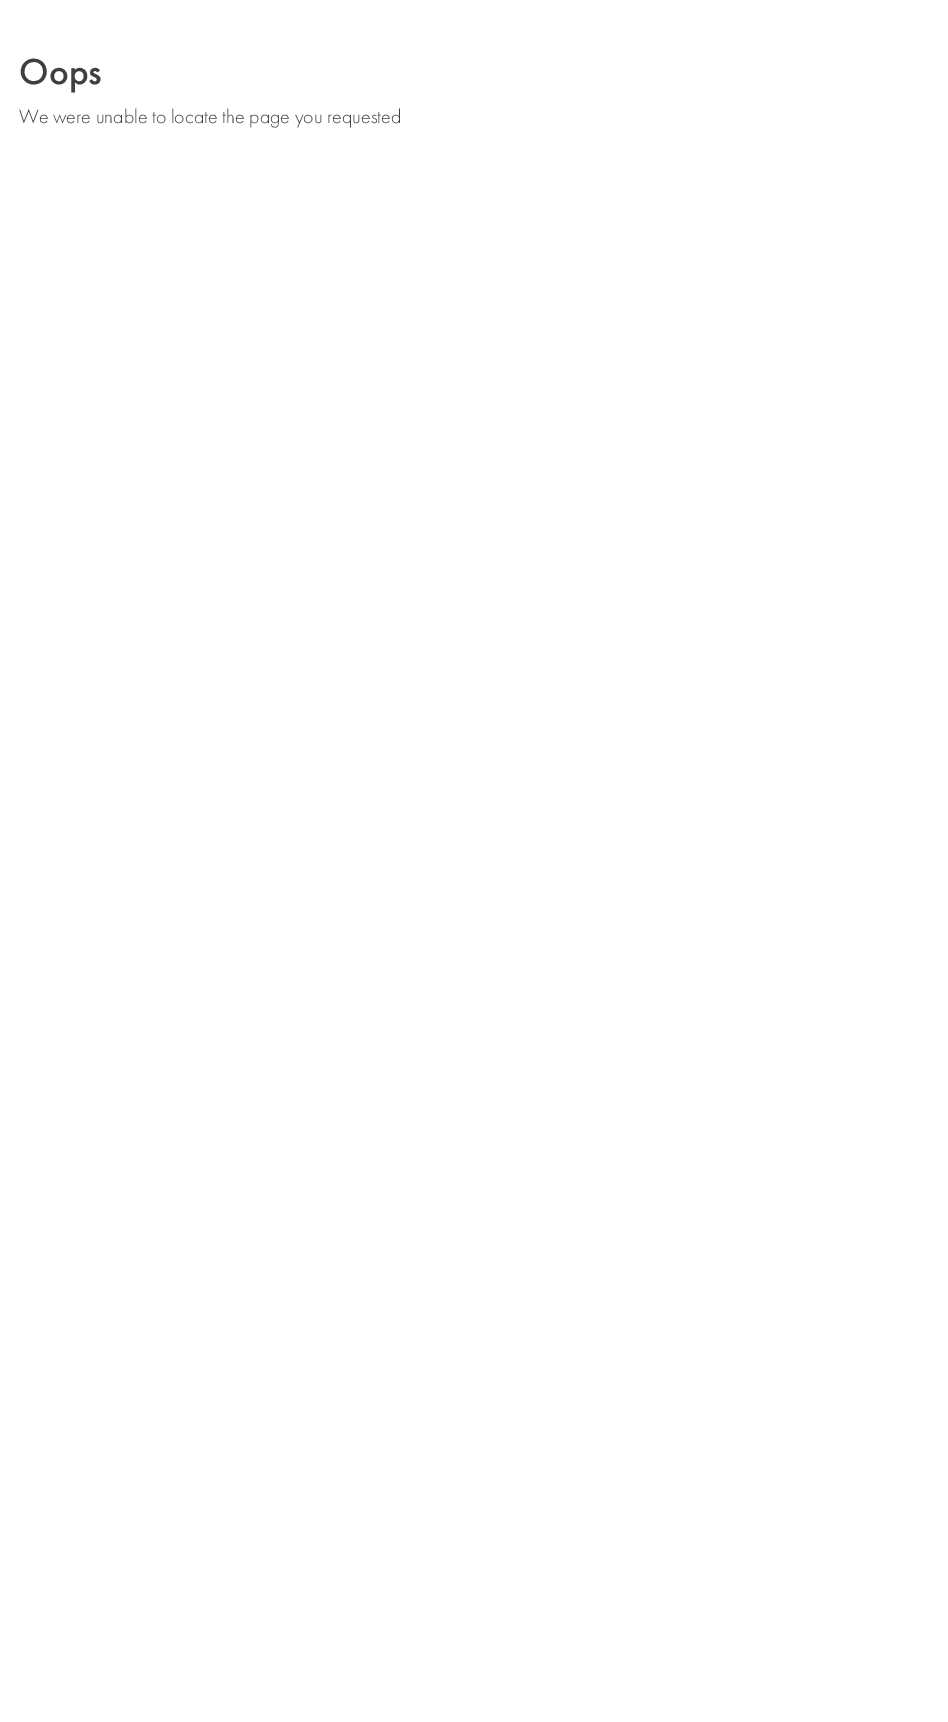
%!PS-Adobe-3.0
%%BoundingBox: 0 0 948 1722
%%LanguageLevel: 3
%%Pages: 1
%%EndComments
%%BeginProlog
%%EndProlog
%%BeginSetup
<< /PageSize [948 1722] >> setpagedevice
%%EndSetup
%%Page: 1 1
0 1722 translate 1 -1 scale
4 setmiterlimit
1 setgray
0 0 948 1722 rectfill
/FuturaPT-Medium [37.5 0 0 -37.5 0 0] selectfont
0.247 setgray
19 84 moveto (Oops) show
/FuturaPT-Light [20 0 0 -20 0 0] selectfont
19 123 moveto (We were unable to locate the page you requested) show
showpage
%%EOF
